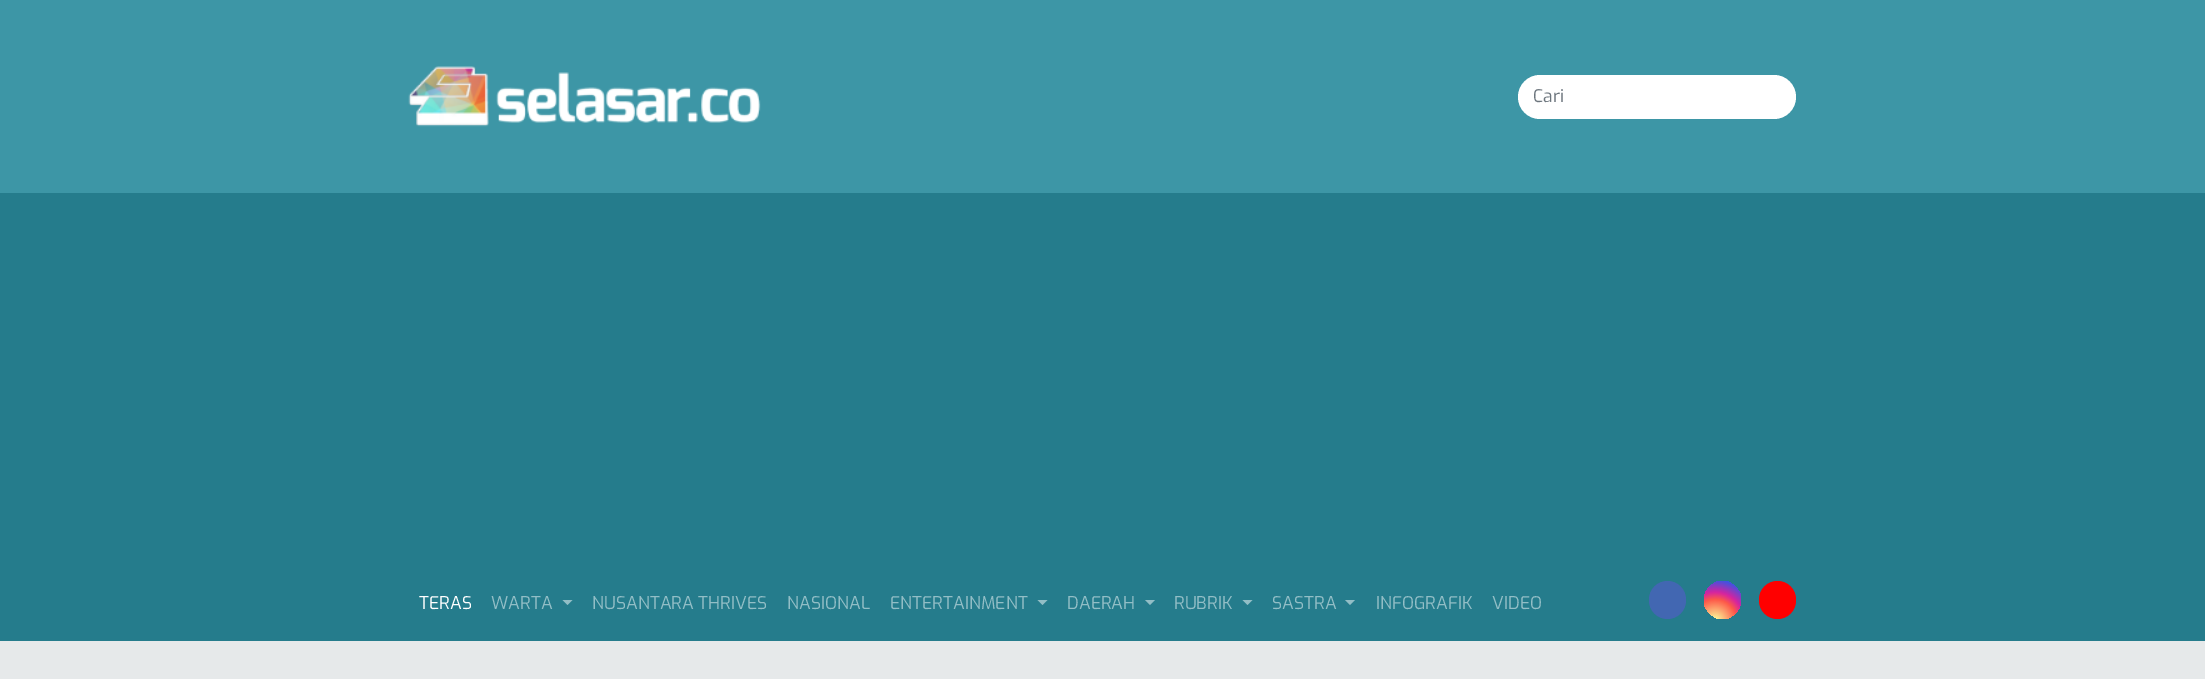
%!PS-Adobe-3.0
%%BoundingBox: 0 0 2205 679
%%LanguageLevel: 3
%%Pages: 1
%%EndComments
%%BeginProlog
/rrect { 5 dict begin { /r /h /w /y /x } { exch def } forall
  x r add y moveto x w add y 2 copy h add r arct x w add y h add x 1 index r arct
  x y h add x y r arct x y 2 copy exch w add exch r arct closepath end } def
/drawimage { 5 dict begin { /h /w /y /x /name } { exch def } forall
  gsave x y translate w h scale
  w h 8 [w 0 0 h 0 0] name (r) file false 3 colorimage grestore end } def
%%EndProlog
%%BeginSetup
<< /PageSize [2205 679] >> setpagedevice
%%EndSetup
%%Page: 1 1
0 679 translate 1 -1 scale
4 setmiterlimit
0.902 0.914 0.918 setrgbcolor
0 0 2205 679 rectfill
0.239 0.588 0.651 setrgbcolor
0 0 2205 193 rectfill
(images/1.raw) 408 66 353 61 drawimage
1 setgray
1518 75 278 44 22 rrect fill
0.145 0.486 0.549 setrgbcolor
0 193 2205 448 rectfill
0.573 0.745 0.776 setrgbcolor
newpath 562.5 600 moveto 572.5 600 lineto 567.5 605 lineto closepath fill
newpath 1037.5 600 moveto 1047.5 600 lineto 1042.5 605 lineto closepath fill
newpath 1145 600 moveto 1155 600 lineto 1150 605 lineto closepath fill
newpath 1242.5 600 moveto 1252.5 600 lineto 1247.5 605 lineto closepath fill
newpath 1345 600 moveto 1355 600 lineto 1350 605 lineto closepath fill
0.259 0.404 0.698 setrgbcolor
1649 581 37 38 18.5 rrect fill
gsave 1704 581 37 38 18.5 rrect clip newpath 1715 621 translate 48 48 scale
<< /ShadingType 3 /ColorSpace /DeviceRGB /Coords [0 0 0 0 0 1] /Extend [true true] /Function << /FunctionType 3 /Domain [0 1] /Functions [<< /FunctionType 2 /Domain [0 1] /C0 [0.992 0.957 0.592] /C1 [0.992 0.957 0.592] /N 1 >> << /FunctionType 2 /Domain [0 1] /C0 [0.992 0.957 0.592] /C1 [0.992 0.349 0.286] /N 1 >> << /FunctionType 2 /Domain [0 1] /C0 [0.992 0.349 0.286] /C1 [0.839 0.141 0.624] /N 1 >> << /FunctionType 2 /Domain [0 1] /C0 [0.839 0.141 0.624] /C1 [0.157 0.353 0.922] /N 1 >> << /FunctionType 2 /Domain [0 1] /C0 [0.157 0.353 0.922] /C1 [0.157 0.353 0.922] /N 1 >>] /Bounds [0.05 0.45 0.6 0.9] /Encode [0 1 0 1 0 1 0 1 0 1] >> >> shfill grestore
1 0 0 setrgbcolor
1759 581 37 38 18.5 rrect fill
/Exo-Regular [17.5 0 0 -17.5 0 0] selectfont
0.424 0.459 0.49 setrgbcolor
1533 102 moveto (Cari) show
1 setgray
419 609 moveto (TERAS) show
0.573 0.745 0.776 setrgbcolor
491 609 moveto (WARTA) show
592 609 moveto (NUSANTARA THRIVES) show
787 609 moveto (NASIONAL) show
890 609 moveto (ENTERTAINMENT) show
1067 609 moveto (DAERAH) show
1174 609 moveto (RUBRIK) show
1272 609 moveto (SASTRA) show
1376 609 moveto (INFOGRAFIK) show
1492 609 moveto (VIDEO) show
showpage
%%EOF
